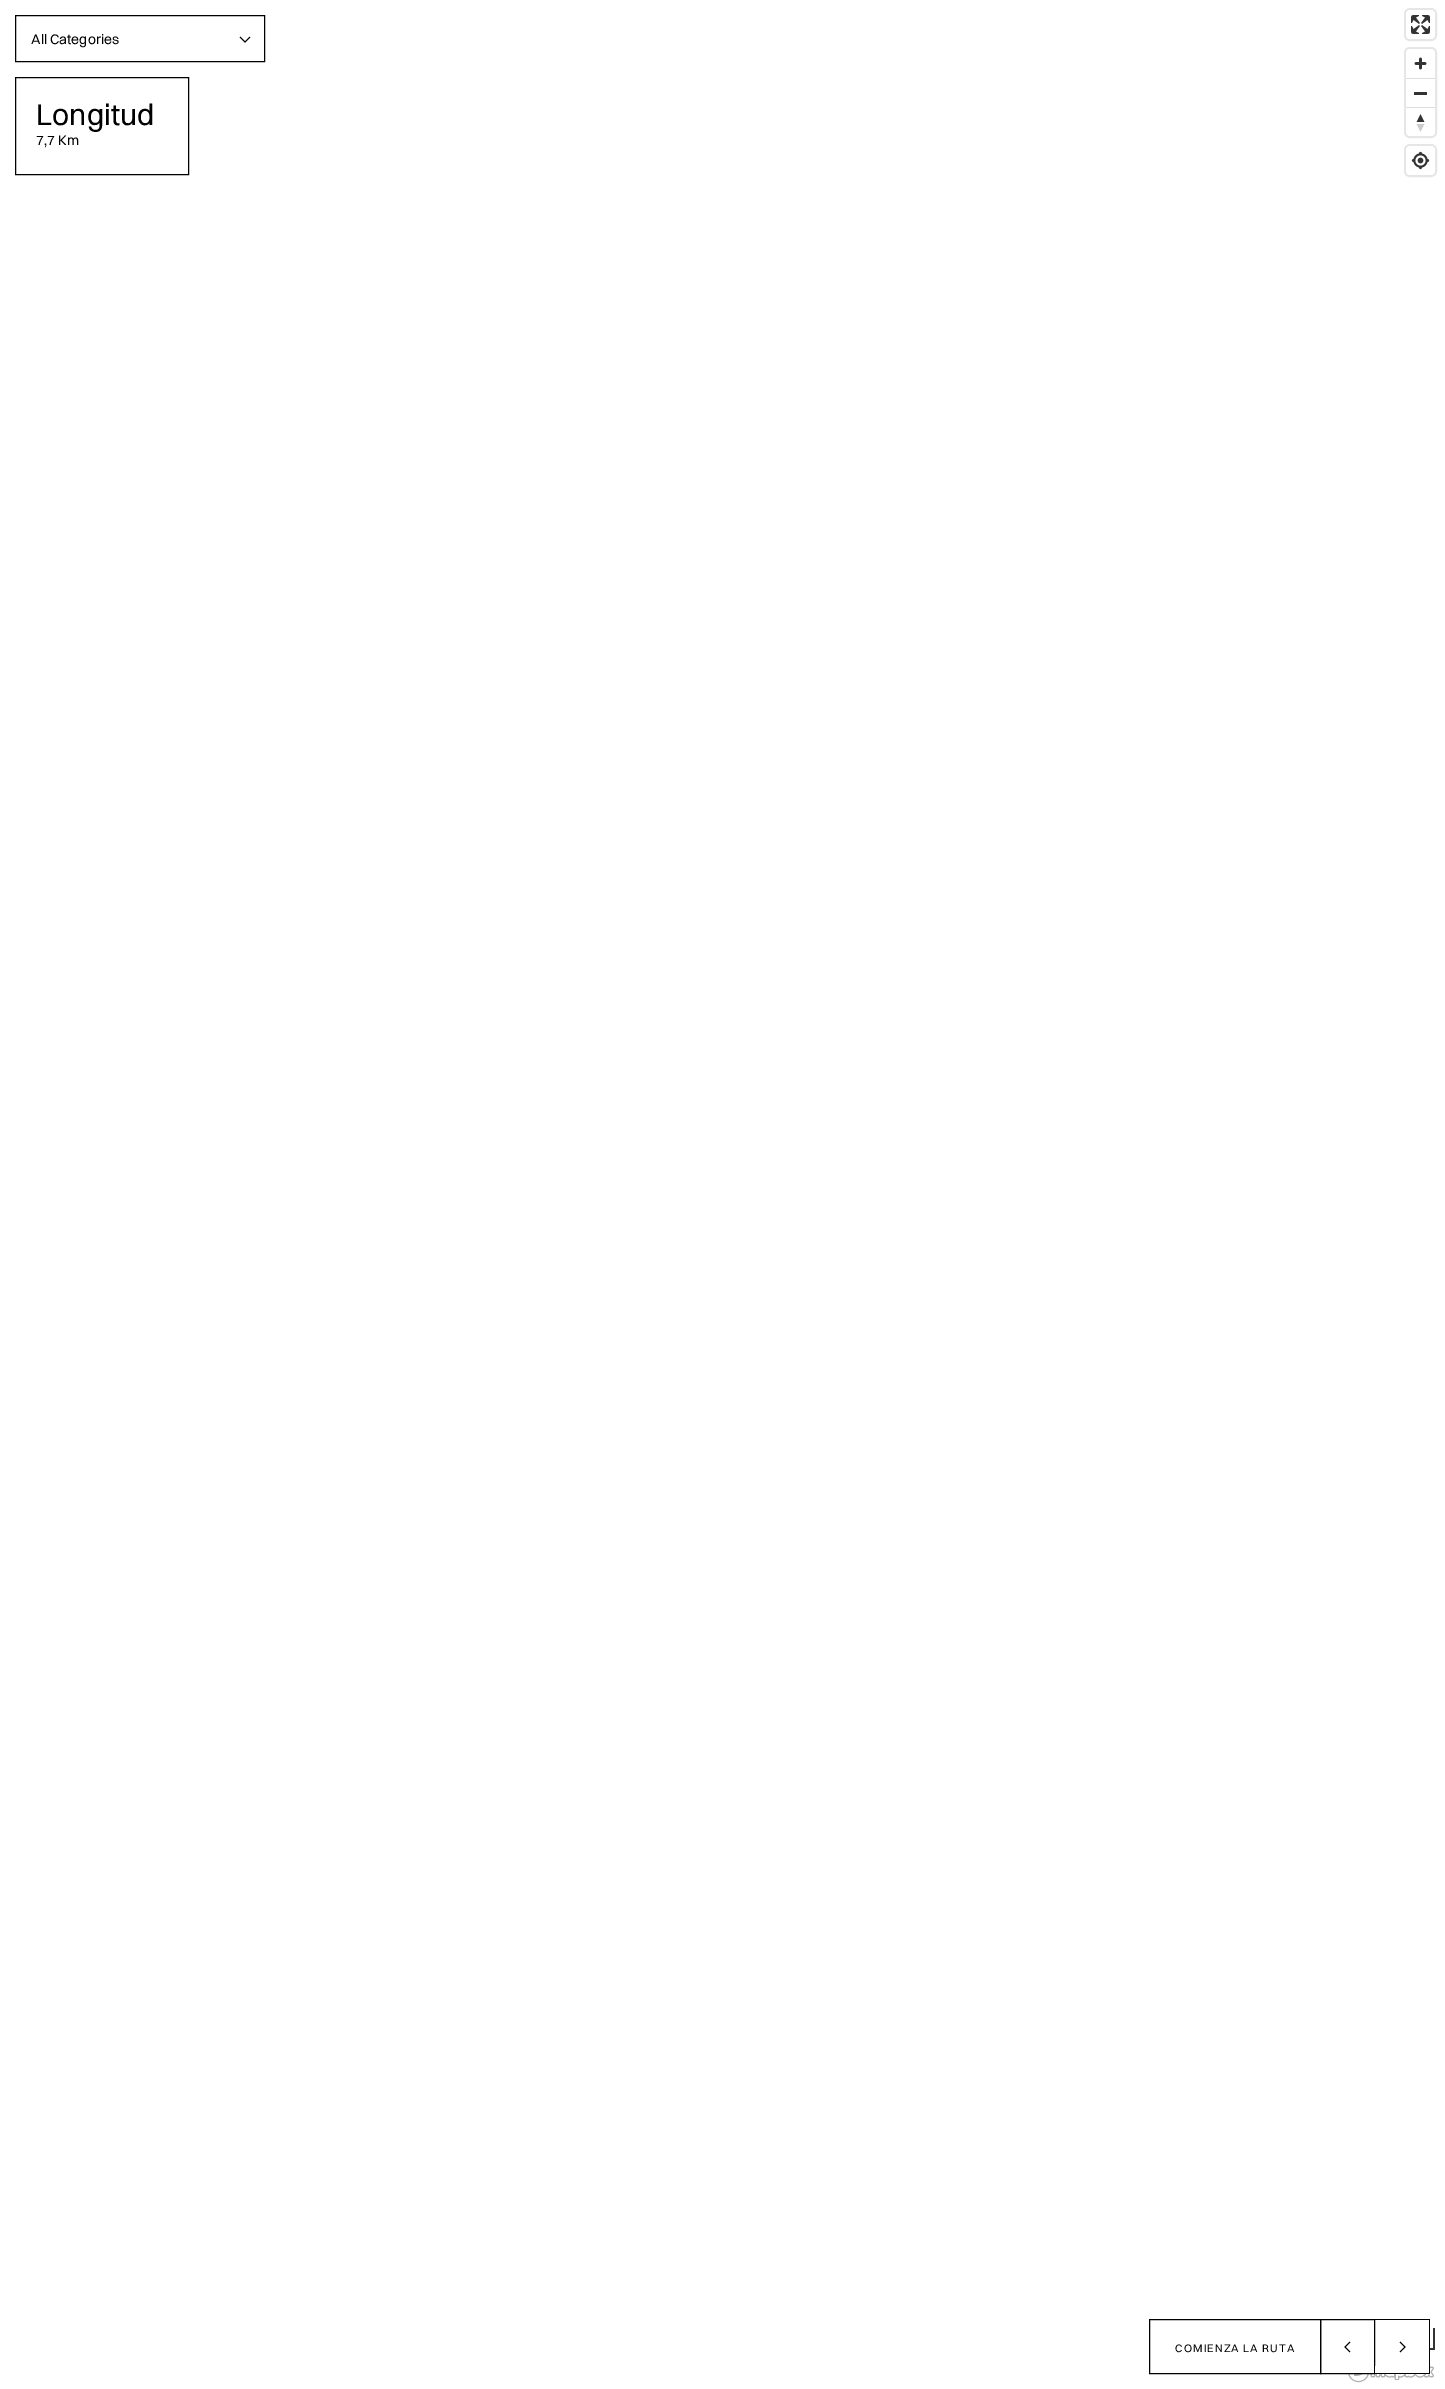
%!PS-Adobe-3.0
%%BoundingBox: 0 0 1445 2389
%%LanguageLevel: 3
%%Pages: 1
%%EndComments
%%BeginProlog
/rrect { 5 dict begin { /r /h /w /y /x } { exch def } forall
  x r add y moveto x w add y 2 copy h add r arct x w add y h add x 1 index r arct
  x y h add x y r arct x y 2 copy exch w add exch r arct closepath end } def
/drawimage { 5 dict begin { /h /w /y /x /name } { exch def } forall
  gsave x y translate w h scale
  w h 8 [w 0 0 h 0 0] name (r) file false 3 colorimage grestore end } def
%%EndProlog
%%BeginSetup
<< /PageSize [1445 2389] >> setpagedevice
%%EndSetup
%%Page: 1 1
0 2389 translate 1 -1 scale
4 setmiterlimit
1 setgray
0 0 1445 2389 rectfill
0 setgray
15.5 15.5 249 46 rectstroke
newpath 250 37 moveto 245 42 lineto 240 37 lineto stroke
15.5 77.5 173 97 rectstroke
0.902 setgray
2 setlinewidth
1405 9 31 31 5 rrect stroke
1 setgray
1406 10 29 29 4 rrect fill
(images/1.raw) 1411 15 19 19 drawimage
0.902 setgray
1405 48 31 89 5 rrect stroke
1 setgray
1406 49 29 87 4 rrect fill
(images/2.raw) 1414 57 13 13 drawimage
0.867 setgray
1406 78 29 1 rectfill
0.2 setgray
1414 92 13 3 rectfill
0.867 setgray
1406 107 29 1 rectfill
(images/3.raw) 1416 114 9 18 drawimage
0.902 setgray
1405 145 31 31 5 rrect stroke
1 setgray
1406 146 29 29 4 rrect fill
(images/4.raw) 1411 151 19 19 drawimage
0.2 setgray
1433 2328 2 22 rectfill
1430 2348 5 2 rectfill
(images/5.raw) 1348 2366 86 17 drawimage
0 setgray
1 setlinewidth
1149.5 2319.5 171 54 rectstroke
1 setgray
1348 2366 26 7 rectfill
0 setgray
newpath 1350 2352 moveto 1345 2347 lineto 1350 2342 lineto stroke
1320.5 2319.5 54 54 rectstroke
1 setgray
1375 2366 54 7 rectfill
0 setgray
newpath 1400 2352 moveto 1405 2347 lineto 1400 2342 lineto stroke
1375 2319 55 1 rectfill
1429 2319 1 55 rectfill
1375 2373 55 1 rectfill
/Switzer-Regular [14 0 0 -14 0 0] selectfont
31 44 moveto (All Categories) show
/Switzer-Regular [30 0 0 -30 0 0] selectfont
36 125 moveto (Longitud) show
/Switzer-Regular [14 0 0 -14 0 0] selectfont
36 145 moveto (7,7 Km) show
/Switzer-Regular [11 0 0 -11 0 0] selectfont
1175 2352 moveto 1.1 0 (COMIENZA LA RUTA) ashow
showpage
%%EOF
